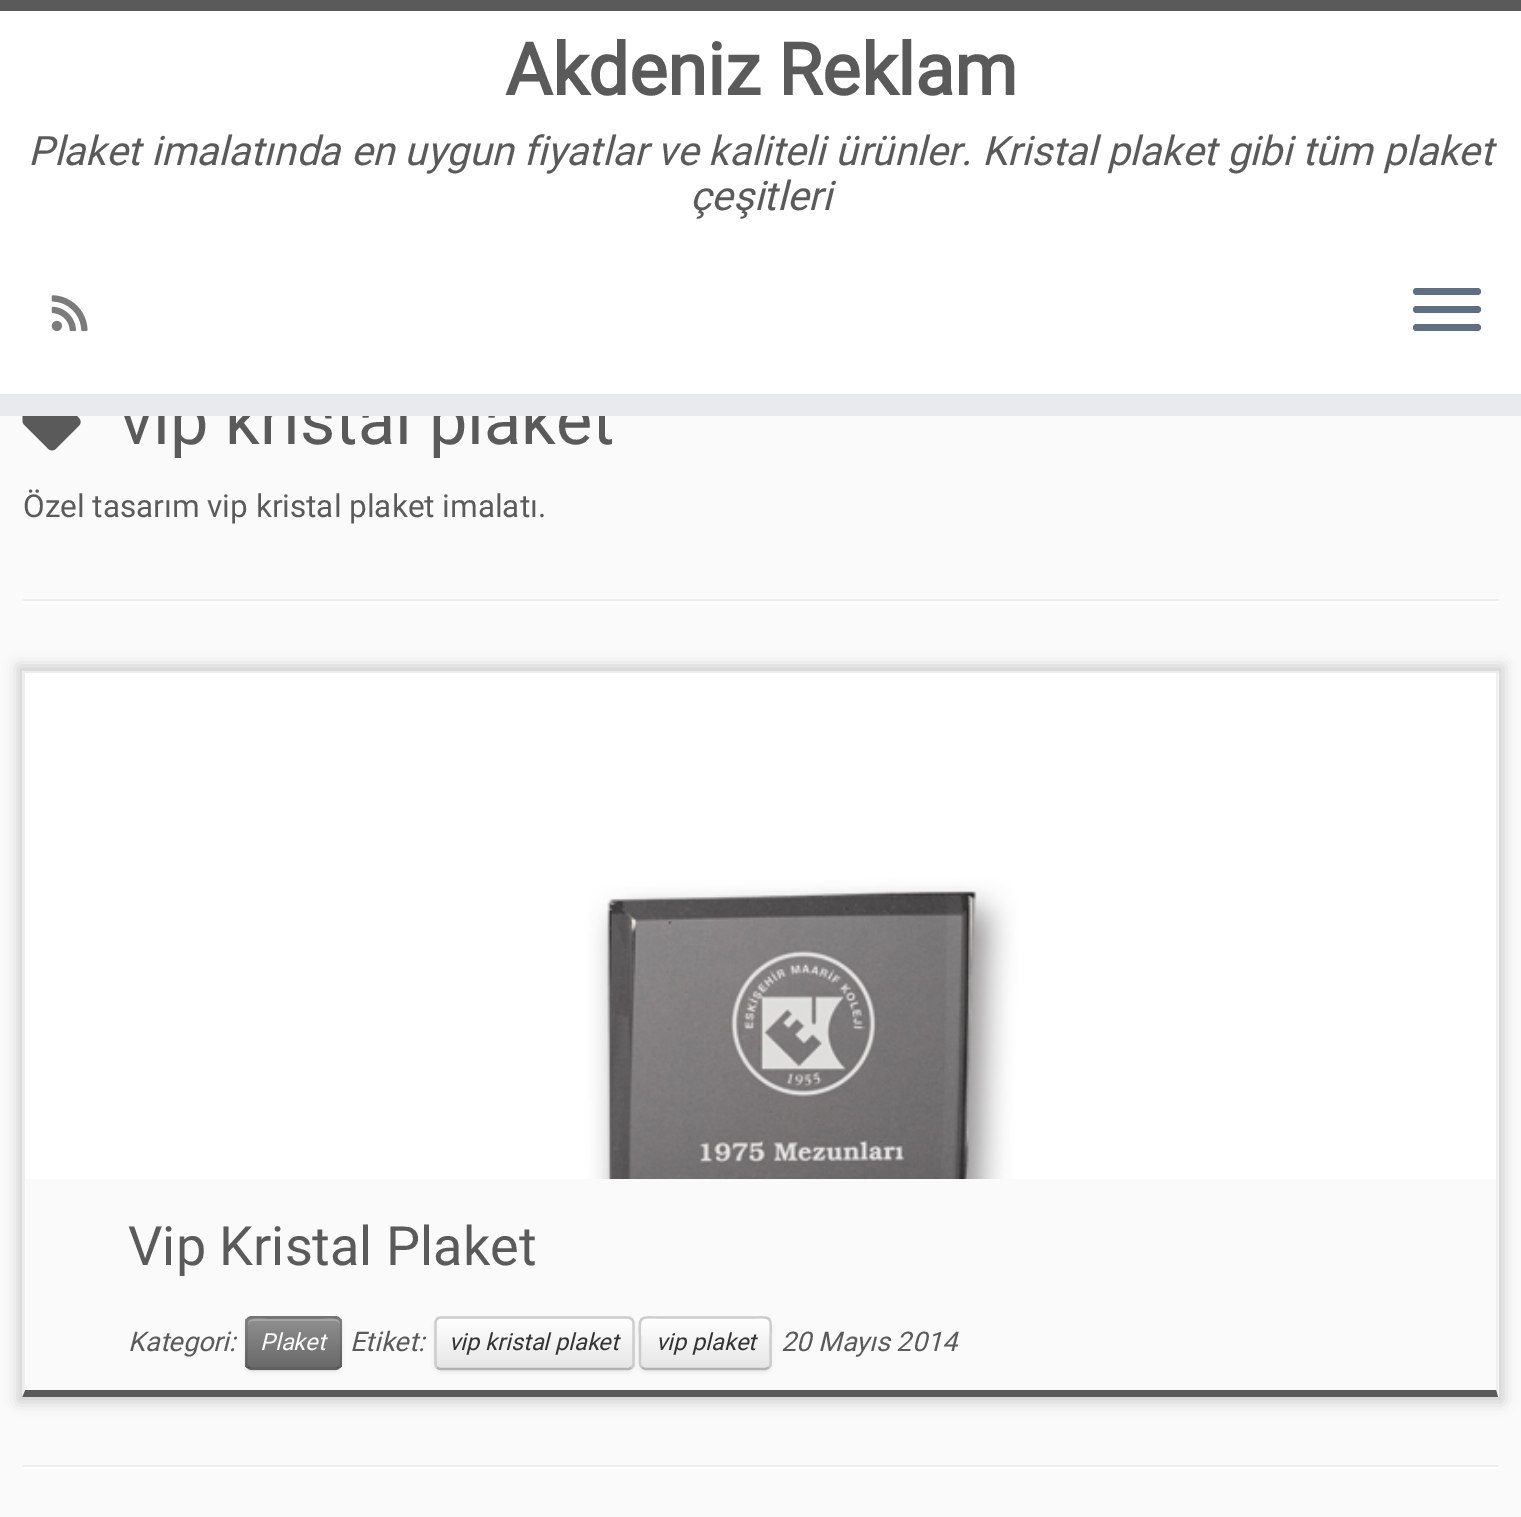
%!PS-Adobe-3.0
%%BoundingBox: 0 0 1521 1517
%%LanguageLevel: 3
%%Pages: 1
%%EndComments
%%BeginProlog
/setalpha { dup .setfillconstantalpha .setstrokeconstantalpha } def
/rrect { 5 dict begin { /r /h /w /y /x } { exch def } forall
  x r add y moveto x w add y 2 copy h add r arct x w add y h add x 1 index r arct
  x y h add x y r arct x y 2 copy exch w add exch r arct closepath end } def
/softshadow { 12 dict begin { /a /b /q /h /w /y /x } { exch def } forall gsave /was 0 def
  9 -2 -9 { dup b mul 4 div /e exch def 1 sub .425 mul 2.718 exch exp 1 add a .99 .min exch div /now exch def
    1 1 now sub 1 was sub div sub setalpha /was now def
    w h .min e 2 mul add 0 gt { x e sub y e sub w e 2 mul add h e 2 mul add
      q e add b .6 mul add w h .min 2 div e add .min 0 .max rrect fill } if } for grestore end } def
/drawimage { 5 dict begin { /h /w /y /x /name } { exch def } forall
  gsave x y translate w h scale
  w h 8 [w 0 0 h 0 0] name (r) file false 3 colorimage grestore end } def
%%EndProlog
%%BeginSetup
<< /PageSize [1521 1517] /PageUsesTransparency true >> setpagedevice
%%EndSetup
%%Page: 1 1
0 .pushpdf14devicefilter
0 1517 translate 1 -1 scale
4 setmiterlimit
0.98 setgray
0 0 1521 1517 rectfill
0.353 setgray
0 0 1521 11 rectfill
(images/2.raw) 22 416 59 35 drawimage
0.933 setgray
23 599 1476 2 rectfill
1 setgray
23 601 1476 2 rectfill
gsave
newpath 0 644 moveto 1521 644 lineto 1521 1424 lineto 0 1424 lineto closepath 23 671 moveto 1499 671 lineto 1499 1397 lineto 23 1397 lineto closepath eoclip newpath
0.8 setgray
18 666 1485 736 0 7 1 softshadow
grestore
0.933 setgray
23 671 1476 2 rectfill
newpath 1498 670 moveto 1498 1397 lineto 1496 1390 lineto 1496 673 lineto closepath fill
0.353 setgray
newpath 1498 1397 moveto 22 1397 lineto 25 1390 lineto 1496 1390 lineto closepath fill
0.933 setgray
newpath 22 1397 moveto 22 670 lineto 25 673 lineto 25 1390 lineto closepath fill
(images/3.raw) 25 673 1471 506 drawimage
0 setgray
245 1319 97 54 7 2 0.05 softshadow
0.502 setgray
245 1316 97 54 7 rrect fill
gsave
245 1316 97 54 7 rrect clip newpath
gsave newpath 245 1319 moveto 342 1319 lineto 342 1368 lineto 245 1368 lineto closepath clip newpath
<< /ShadingType 2 /ColorSpace /DeviceRGB /Coords [294 1319 294 1368] /Extend [true true] /Function << /FunctionType 2 /Domain [0 1] /C0 [0.561 0.561 0.561] /C1 [0.412 0.412 0.412] /N 1 >> >> shfill grestore
grestore
0.647 setgray
newpath 252 1321 moveto 335 1321 lineto 338 1321 340 1323 340 1325 curveto 340 1316 327 1319 321 1319 curveto 267 1319 lineto 261 1319 248 1316 248 1325 curveto 248 1323 250 1321 252 1321 curveto closepath fill
0.25 setalpha
0 setgray
2.2 setlinewidth
newpath 339 1367.5 moveto 336 1369 lineto 251.5 1369 lineto 248 1367.5 lineto stroke
0.1 setalpha
newpath 248 1367.5 moveto 247 1366.5 246.5 1365 246.5 1363.5 curveto 246.5 1323 lineto 246.5 1321.5 247 1320 248 1319 curveto 249 1318 250.5 1317.5 252 1317.5 curveto 335 1317.5 lineto 336.5 1317.5 338 1318 339 1319 curveto 340.5 1320 341 1321.5 341 1323 curveto 341 1363.5 lineto 341 1365 340.5 1366.5 339 1367.5 curveto stroke
1 setalpha
434 1319 201 54 7 2 0.05 softshadow
0.961 setgray
434 1316 201 54 7 rrect fill
gsave
434 1316 201 54 7 rrect clip newpath
gsave newpath 434 1319 moveto 635 1319 lineto 635 1368 lineto 434 1368 lineto closepath clip newpath
<< /ShadingType 2 /ColorSpace /DeviceRGB /Coords [534 1319 534 1368] /Extend [true true] /Function << /FunctionType 2 /Domain [0 1] /C0 [1 1 1] /C1 [0.902 0.902 0.902] /N 1 >> >> shfill grestore
grestore
0.702 setgray
newpath 631.5 1367.5 moveto 630.5 1368.5 629 1369 628 1369 curveto 441 1369 lineto 439.5 1369 438 1368.5 437 1367.5 curveto stroke
0.8 setgray
newpath 437 1367.5 moveto 436 1366.5 435.5 1365 435.5 1363.5 curveto 435.5 1323 lineto 435.5 1321.5 436 1320 437 1319 curveto 438 1318 439.5 1317.5 441 1317.5 curveto 628 1317.5 lineto 629 1317.5 630.5 1318 631.5 1319 curveto 633 1320 633.5 1321.5 633.5 1323 curveto 633.5 1363.5 lineto 633.5 1365 633 1366.5 631.5 1367.5 curveto stroke
0 setgray
639 1319 133 54 7 2 0.05 softshadow
0.961 setgray
639 1316 133 54 7 rrect fill
gsave
639 1316 133 54 7 rrect clip newpath
gsave newpath 639 1319 moveto 772 1319 lineto 772 1368 lineto 639 1368 lineto closepath clip newpath
<< /ShadingType 2 /ColorSpace /DeviceRGB /Coords [705 1319 705 1368] /Extend [true true] /Function << /FunctionType 2 /Domain [0 1] /C0 [1 1 1] /C1 [0.902 0.902 0.902] /N 1 >> >> shfill grestore
grestore
0.702 setgray
newpath 769 1367.5 moveto 765.5 1369 lineto 645 1369 lineto 642 1367.5 lineto stroke
0.8 setgray
newpath 642 1367.5 moveto 639 1365 640 1360 640 1357 curveto 640 1343 lineto 640 1313.5 635.5 1317.5 665.5 1317.5 curveto 745 1317.5 lineto 775.5 1317.5 770.5 1313.5 770.5 1343 curveto 770.5 1357 lineto 770.5 1360 771.5 1365 769 1367.5 curveto stroke
0.933 setgray
23 1465 1476 2 rectfill
1 setgray
23 1467 1476 2 rectfill
/Roboto-Regular [68.5 0 0 -68.5 0 0] selectfont
0.353 setgray
120 444 moveto (vip kristal plaket) show
1 setgray
0 11 1521 383 rectfill
(images/1.raw) 51 295 37 37 drawimage
0.373 0.435 0.506 setrgbcolor
1413 324 68 7 3.5 rrect fill
1413 306 68 7 3.5 rrect fill
1413 288 68 7 3.5 rrect fill
/Roboto-Italic [40.5 0 0 -40.5 0 0] selectfont
0.353 setgray
690 210 moveto (çeşitleri) show
28 165 moveto (Plaket imalatında en uygun fiyatlar ve kaliteli ürünler. Kristal plaket gibi tüm plaket) show
/Roboto-Bold [72 0 0 -72 0 0] selectfont
505 95 moveto (Akdeniz Reklam) show
0.914 0.918 0.933 setrgbcolor
0 394 1521 22 rectfill
/Roboto-Regular [31.5 0 0 -31.5 0 0] selectfont
0.353 setgray
23 517 moveto (Özel tasarım vip kristal plaket imalatı.) show
/Roboto-Regular [54 0 0 -54 0 0] selectfont
128 1265 moveto (Vip Kristal Plaket) show
/Roboto-Italic [27 0 0 -27 0 0] selectfont
128 1351 moveto (Kategori:) show
/Roboto-Italic [23.5 0 0 -23.5 0 0] selectfont
1 setgray
260 1350 moveto (Plaket) show
/Roboto-Italic [27 0 0 -27 0 0] selectfont
0.353 setgray
350 1351 moveto (Etiket:) show
/Roboto-Italic [23.5 0 0 -23.5 0 0] selectfont
0.2 setgray
449 1350 moveto (vip kristal plaket) show
656 1350 moveto (vip plaket) show
/Roboto-Italic [27 0 0 -27 0 0] selectfont
0.353 setgray
781 1351 moveto (20 Mayıs 2014) show
.poppdf14devicefilter showpage
%%EOF
